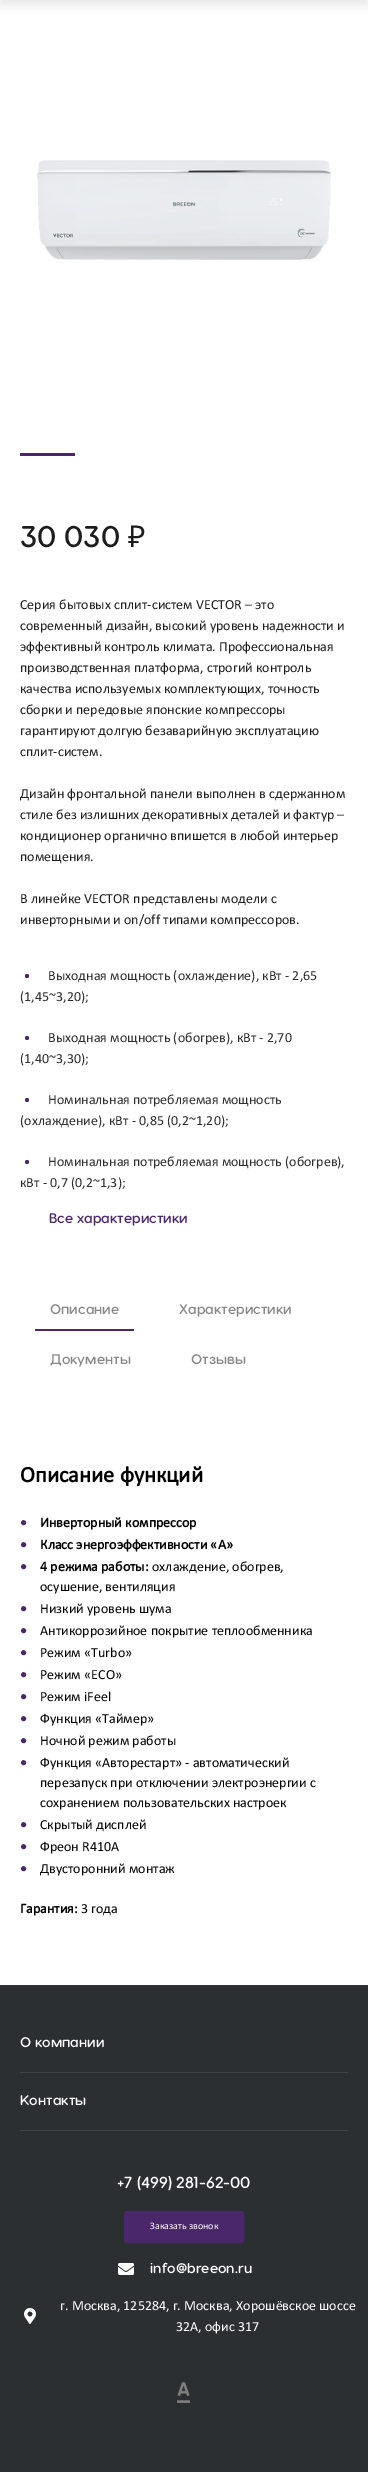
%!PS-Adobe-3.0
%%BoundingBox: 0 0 368 2472
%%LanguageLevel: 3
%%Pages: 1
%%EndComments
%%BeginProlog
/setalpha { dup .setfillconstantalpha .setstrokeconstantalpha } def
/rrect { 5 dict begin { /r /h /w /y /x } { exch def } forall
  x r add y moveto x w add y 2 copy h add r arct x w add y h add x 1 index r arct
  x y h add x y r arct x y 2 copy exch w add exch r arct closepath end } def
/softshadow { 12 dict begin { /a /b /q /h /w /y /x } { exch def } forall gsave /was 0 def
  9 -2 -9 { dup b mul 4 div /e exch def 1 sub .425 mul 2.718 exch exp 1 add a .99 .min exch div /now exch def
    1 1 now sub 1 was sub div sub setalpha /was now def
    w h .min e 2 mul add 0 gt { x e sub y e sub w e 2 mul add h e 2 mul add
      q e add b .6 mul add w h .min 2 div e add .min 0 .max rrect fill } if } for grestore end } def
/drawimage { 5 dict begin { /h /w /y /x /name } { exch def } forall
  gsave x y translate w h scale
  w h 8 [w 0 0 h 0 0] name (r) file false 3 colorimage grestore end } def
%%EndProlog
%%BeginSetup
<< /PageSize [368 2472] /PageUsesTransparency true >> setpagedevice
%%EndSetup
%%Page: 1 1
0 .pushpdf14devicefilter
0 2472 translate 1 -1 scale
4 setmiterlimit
1 setgray
0 0 368 2472 rectfill
0 setgray
0 -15 368 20 0 5 0.1 softshadow
(images/1.raw) 37 160 294 100 drawimage
0.29 0.153 0.42 setrgbcolor
20 453 55 3 rectfill
newpath 27 976 2 0 360 arc closepath fill
newpath 27 1038 2 0 360 arc closepath fill
newpath 27 1100 2 0 360 arc closepath fill
newpath 27 1162 2 0 360 arc closepath fill
35 1329 99 2 rectfill
0.169 0.184 0.196 setrgbcolor
0 1985 368 487 rectfill
0.251 0.267 0.278 setrgbcolor
20 2072 328 1 rectfill
20 2130 328 1 rectfill
0.29 0.153 0.42 setrgbcolor
125 2212 118 30 2 rrect gsave fill grestore
2 setlinewidth
stroke
(images/2.raw) 118 2263 16 12 drawimage
(images/3.raw) 24 2308 12 16 drawimage
(images/4.raw) 177 2382 13 21 drawimage
/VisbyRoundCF-SemiBold [30 0 0 -30 0 0] selectfont
0.114 setgray
20 547 moveto (30 030) show
/NotoSans-Regular [30 0 0 -30 0 0] selectfont
128 547 moveto (₽) show
/Calibri-Regular [14 0 0 -14 0 0] selectfont
20 609 moveto (Серия бытовых сплит-систем VECTOR – это) show
20 630 moveto (современный дизайн, высокий уровень надежности и) show
20 651 moveto (эффективный контроль климата. Профессиональная) show
20 672 moveto (производственная платформа, строгий контроль) show
20 693 moveto (качества используемых комплектующих, точность) show
20 714 moveto (сборки и передовые японские компрессоры) show
20 735 moveto (гарантируют долгую безаварийную эксплуатацию) show
20 756 moveto (сплит-систем.) show
20 798 moveto (Дизайн фронтальной панели выполнен в сдержанном) show
20 819 moveto (стиле без излишних декоративных деталей и фактур –) show
20 840 moveto (кондиционер органично впишется в любой интерьер) show
20 861 moveto (помещения.) show
20 903 moveto (В линейке VECTOR представлены модели с) show
20 924 moveto (инверторными и on/off типами компрессоров.) show
0.176 setgray
48 980 moveto (Выходная мощность \(охлаждение\), кВт - 2,65) show
20 1001 moveto (\(1,45~3,20\);) show
48 1042 moveto (Выходная мощность \(обогрев\), кВт - 2,70) show
20 1063 moveto (\(1,40~3,30\);) show
48 1104 moveto (Номинальная потребляемая мощность) show
20 1125 moveto (\(охлаждение\), кВт - 0,85 \(0,2~1,20\);) show
48 1166 moveto (Номинальная потребляемая мощность \(обогрев\),) show
20 1187 moveto (кВт - 0,7 \(0,2~1,3\);) show
/VisbyRoundCF-SemiBold [14 0 0 -14 0 0] selectfont
0.29 0.153 0.42 setrgbcolor
49 1223 moveto (Все характеристики) show
0.533 setgray
50 1314 moveto (Описание) show
179 1314 moveto (Характеристики) show
50 1364 moveto (Документы) show
191 1364 moveto (Отзывы) show
/Calibri-Bold [22.5 0 0 -22.5 0 0] selectfont
0 setgray
20 1482 moveto (Описание функций) show
/Calibri-Regular [12 0 0 -12 0 0] selectfont
0.29 0.153 0.42 setrgbcolor
20 1526 moveto (●) show
/Calibri-Bold [14 0 0 -14 0 0] selectfont
0 setgray
40 1527 moveto (Инверторный компрессор) show
/Calibri-Regular [12 0 0 -12 0 0] selectfont
0.29 0.153 0.42 setrgbcolor
20 1548 moveto (●) show
/Calibri-Bold [14 0 0 -14 0 0] selectfont
0 setgray
40 1549 moveto (Класс энергоэффективности «А») show
/Calibri-Regular [12 0 0 -12 0 0] selectfont
0.29 0.153 0.42 setrgbcolor
20 1570 moveto (●) show
/Calibri-Bold [14 0 0 -14 0 0] selectfont
0 setgray
40 1571 moveto (4 режима работы:) show
/Calibri-Regular [14 0 0 -14 0 0] selectfont
152 1571 moveto (охлаждение, обогрев,) show
40 1591 moveto (осушение, вентиляция) show
/Calibri-Regular [12 0 0 -12 0 0] selectfont
0.29 0.153 0.42 setrgbcolor
20 1612 moveto (●) show
/Calibri-Regular [14 0 0 -14 0 0] selectfont
0 setgray
40 1613 moveto (Низкий уровень шума) show
/Calibri-Regular [12 0 0 -12 0 0] selectfont
0.29 0.153 0.42 setrgbcolor
20 1634 moveto (●) show
/Calibri-Regular [14 0 0 -14 0 0] selectfont
0 setgray
40 1635 moveto (Антикоррозийное покрытие теплообменника) show
/Calibri-Regular [12 0 0 -12 0 0] selectfont
0.29 0.153 0.42 setrgbcolor
20 1656 moveto (●) show
/Calibri-Regular [14 0 0 -14 0 0] selectfont
0 setgray
40 1657 moveto (Режим «Turbo») show
/Calibri-Regular [12 0 0 -12 0 0] selectfont
0.29 0.153 0.42 setrgbcolor
20 1678 moveto (●) show
/Calibri-Regular [14 0 0 -14 0 0] selectfont
0 setgray
40 1679 moveto (Режим «ECO») show
/Calibri-Regular [12 0 0 -12 0 0] selectfont
0.29 0.153 0.42 setrgbcolor
20 1700 moveto (●) show
/Calibri-Regular [14 0 0 -14 0 0] selectfont
0 setgray
40 1701 moveto (Режим iFeel) show
/Calibri-Regular [12 0 0 -12 0 0] selectfont
0.29 0.153 0.42 setrgbcolor
20 1722 moveto (●) show
/Calibri-Regular [14 0 0 -14 0 0] selectfont
0 setgray
40 1723 moveto (Функция «Таймер») show
/Calibri-Regular [12 0 0 -12 0 0] selectfont
0.29 0.153 0.42 setrgbcolor
20 1744 moveto (●) show
/Calibri-Regular [14 0 0 -14 0 0] selectfont
0 setgray
40 1745 moveto (Ночной режим работы) show
/Calibri-Regular [12 0 0 -12 0 0] selectfont
0.29 0.153 0.42 setrgbcolor
20 1766 moveto (●) show
/Calibri-Regular [14 0 0 -14 0 0] selectfont
0 setgray
40 1767 moveto (Функция «Авторестарт» - автоматический) show
40 1787 moveto (перезапуск при отключении электроэнергии с) show
40 1807 moveto (сохранением пользовательских настроек) show
/Calibri-Regular [12 0 0 -12 0 0] selectfont
0.29 0.153 0.42 setrgbcolor
20 1828 moveto (●) show
/Calibri-Regular [14 0 0 -14 0 0] selectfont
0 setgray
40 1829 moveto (Скрытый дисплей) show
/Calibri-Regular [12 0 0 -12 0 0] selectfont
0.29 0.153 0.42 setrgbcolor
20 1850 moveto (●) show
/Calibri-Regular [14 0 0 -14 0 0] selectfont
0 setgray
40 1851 moveto (Фреон R410A) show
/Calibri-Regular [12 0 0 -12 0 0] selectfont
0.29 0.153 0.42 setrgbcolor
20 1872 moveto (●) show
/Calibri-Regular [14 0 0 -14 0 0] selectfont
0 setgray
40 1873 moveto (Двусторонний монтаж) show
/Calibri-Bold [14 0 0 -14 0 0] selectfont
20 1913 moveto (Гарантия:) show
/Calibri-Regular [14 0 0 -14 0 0] selectfont
81 1913 moveto (3 года) show
/VisbyRoundCF-SemiBold [14 0 0 -14 0 0] selectfont
1 setgray
20 2047 moveto (О компании) show
20 2105 moveto (Контакты) show
/VisbyRoundCF-SemiBold [16 0 0 -16 0 0] selectfont
117 2188 moveto (+7 \(499\) 281-62-00) show
/Calibri-Regular [10 0 0 -10 0 0] selectfont
150 2229 moveto (Заказать звонок) show
/VisbyRoundCF-SemiBold [14 0 0 -14 0 0] selectfont
150 2273 moveto (info@breeon.ru) show
/Calibri-Regular [14 0 0 -14 0 0] selectfont
60 2310 moveto (г. Москва, 125284, г. Москва, Хорошёвское шоссе) show
176 2331 moveto (32А, офис 317) show
.poppdf14devicefilter showpage
%%EOF
